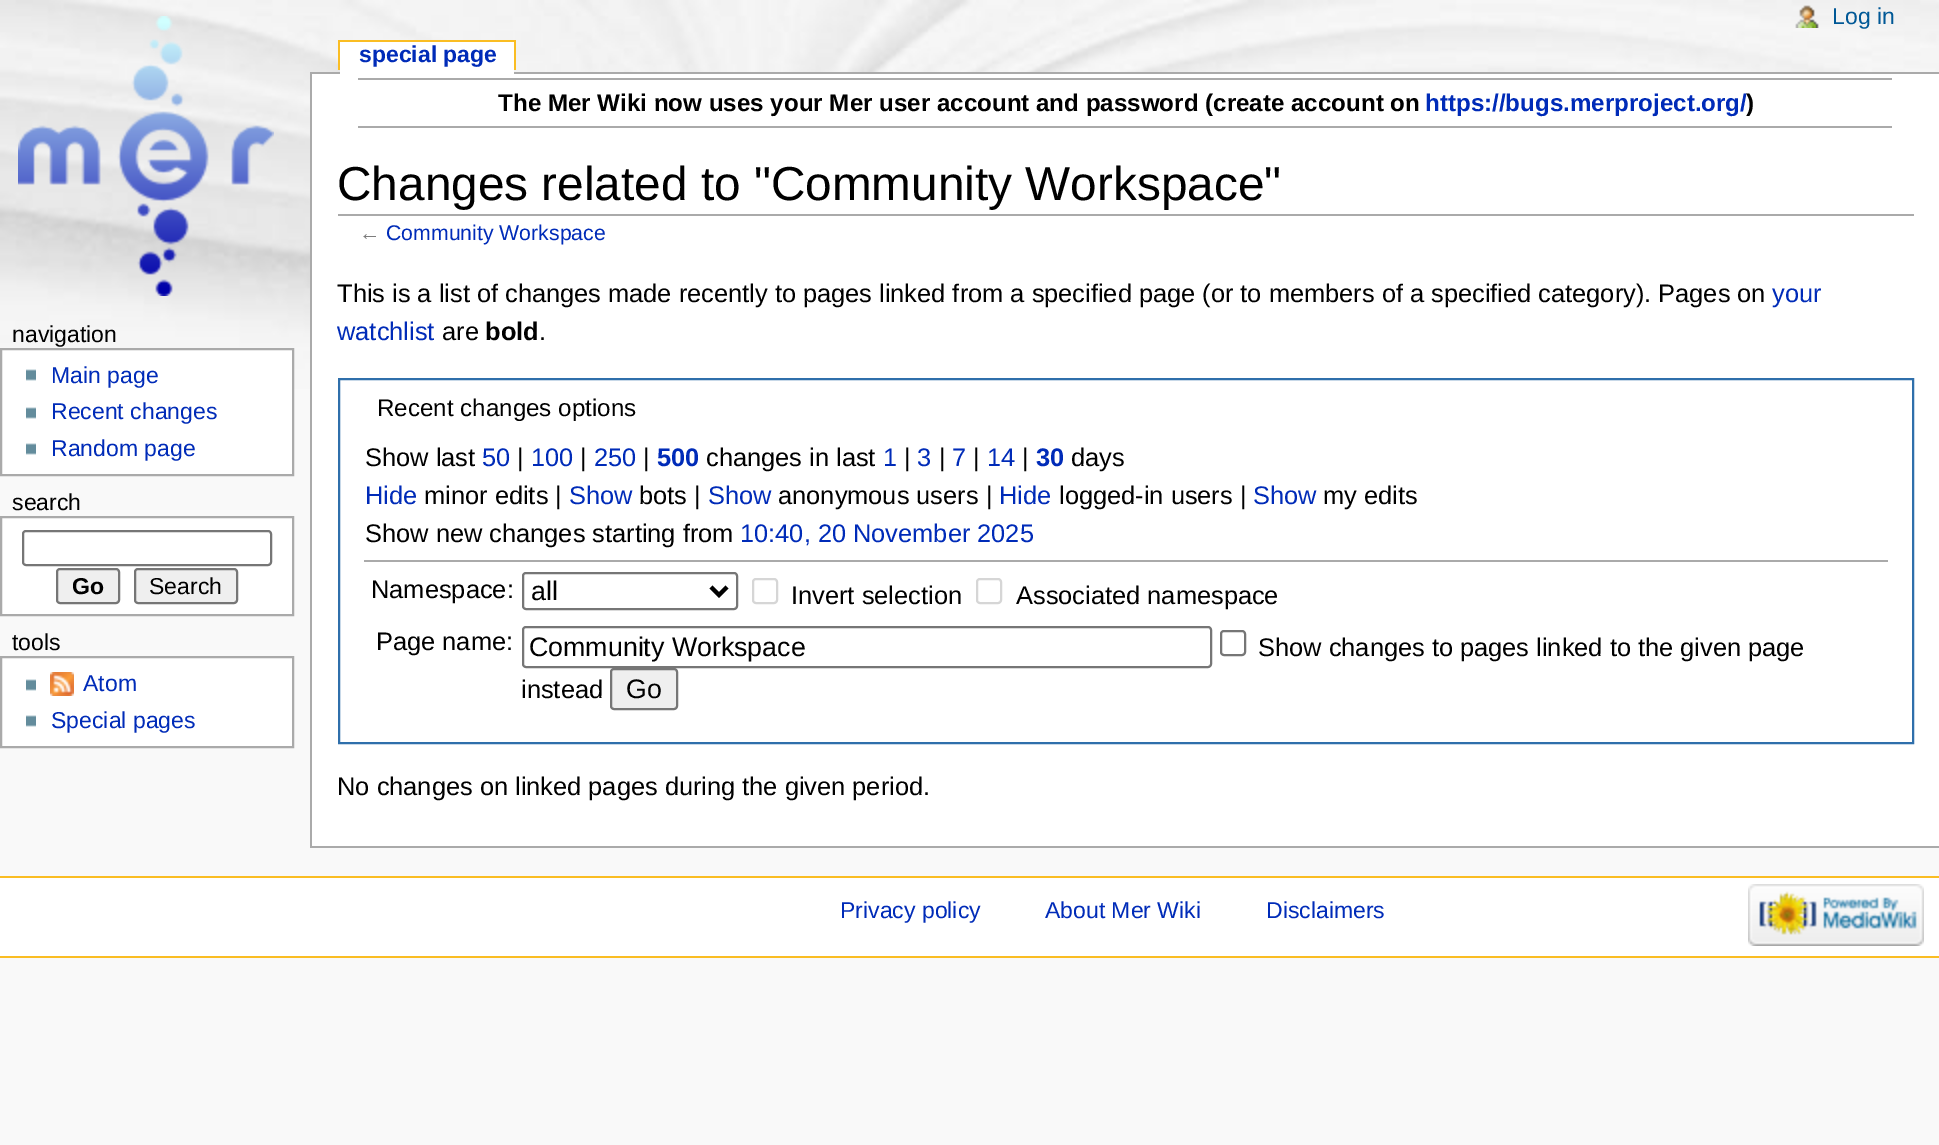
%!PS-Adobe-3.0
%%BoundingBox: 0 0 1939 1145
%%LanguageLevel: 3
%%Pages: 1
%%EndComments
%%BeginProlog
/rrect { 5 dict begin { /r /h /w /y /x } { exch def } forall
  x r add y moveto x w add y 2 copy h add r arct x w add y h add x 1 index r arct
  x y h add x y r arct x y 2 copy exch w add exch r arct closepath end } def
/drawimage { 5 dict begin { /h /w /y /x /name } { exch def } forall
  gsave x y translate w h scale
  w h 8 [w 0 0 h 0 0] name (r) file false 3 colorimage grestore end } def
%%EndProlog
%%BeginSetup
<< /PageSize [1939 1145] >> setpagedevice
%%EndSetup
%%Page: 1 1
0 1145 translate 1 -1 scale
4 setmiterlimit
0.976 setgray
0 0 1939 1145 rectfill
(images/1.raw) 0 0 1939 389 drawimage
(images/2.raw) 18 16 256 280 drawimage
0.98 0.741 0.137 setrgbcolor
338 40 178 2 rectfill
514 40 2 30 rectfill
338 40 2 30 rectfill
0.667 setgray
310 72 1629 2 rectfill
1 setgray
340 42 174 32 rectfill
(images/3.raw) 1795 5 24 23 drawimage
newpath 1 349 moveto 293 349 lineto 293 475 lineto 1 475 lineto closepath gsave fill grestore
0.667 setgray
2 setlinewidth
stroke
(images/4.raw) 26 369 10 12 drawimage
(images/4.raw) 26 407 10 12 drawimage
(images/4.raw) 26 443 10 12 drawimage
1 setgray
newpath 1 517 moveto 293 517 lineto 293 615 lineto 1 615 lineto closepath gsave fill grestore
0.667 setgray
stroke
0.463 setgray
23 531 248 34 3 rrect stroke
0.937 setgray
57 569 62 34 3 rrect gsave fill grestore
0.463 setgray
stroke
0.937 setgray
135 569 102 34 3 rrect gsave fill grestore
0.463 setgray
stroke
1 setgray
newpath 1 657 moveto 293 657 lineto 293 747 lineto 1 747 lineto closepath gsave fill grestore
0.667 setgray
stroke
(images/4.raw) 26 679 10 12 drawimage
(images/5.raw) 50 672 24 24 drawimage
(images/4.raw) 26 715 10 12 drawimage
1 setgray
312 74 1627 772 rectfill
0.667 setgray
310 846 1629 2 rectfill
310 72 2 776 rectfill
358 78 1534 2 rectfill
358 126 1534 2 rectfill
338 214 1576 2 rectfill
0.184 0.435 0.671 setrgbcolor
339 379 1574 364 rectstroke
0.667 setgray
364 560 1524 2 rectfill
0.463 setgray
523 573 214 36 3 rrect stroke
0 setgray
4 setlinewidth
newpath 711 587 moveto 719 595 lineto 727 587 lineto stroke
0.839 setgray
2 setlinewidth
753 579 24 24 3 rrect stroke
977 579 24 24 3 rrect stroke
0.463 setgray
523 627 688 40 3 rrect stroke
1221 631 24 24 3 rrect stroke
0.937 setgray
611 669 66 40 3 rrect gsave fill grestore
0.463 setgray
stroke
1 setgray
0 878 1939 78 rectfill
0.98 0.741 0.137 setrgbcolor
0 876 1939 2 rectfill
0 956 1939 2 rectfill
(images/6.raw) 1748 884 176 62 drawimage
/LiberationSans-Bold [23 0 0 -23 0 0] selectfont
0 0.169 0.722 setrgbcolor
359 62 moveto (special page) show
/LiberationSans-Regular [23 0 0 -23 0 0] selectfont
0 0.345 0.588 setrgbcolor
1832 24 moveto (Log in) show
0 setgray
12 342 moveto (navigation) show
0 0.169 0.722 setrgbcolor
51 383 moveto (Main page) show
51 419 moveto (Recent changes) show
51 456 moveto (Random page) show
0 setgray
12 510 moveto (search) show
/LiberationSans-Bold [23 0 0 -23 0 0] selectfont
72 594 moveto (Go) show
/LiberationSans-Regular [23 0 0 -23 0 0] selectfont
149 594 moveto (Search) show
12 650 moveto (tools) show
0 0.169 0.722 setrgbcolor
83 691 moveto (Atom) show
51 728 moveto (Special pages) show
/LiberationSans-Bold [24.15 0 0 -24.15 0 0] selectfont
0 setgray
498 111 moveto (The Mer Wiki now uses your Mer user account and password \(create account on) show
0 0.169 0.722 setrgbcolor
1425 111 moveto (https://bugs.merproject.org/) show
0 setgray
1746 111 moveto (\)) show
/LiberationSans-Regular [47.75 0 0 -47.75 0 0] selectfont
337 200 moveto (Changes related to "Community Workspace") show
/LiberationSans-Regular [21.25 0 0 -21.25 0 0] selectfont
0.49 setgray
359 240 moveto (←) show
0 0.169 0.722 setrgbcolor
386 240 moveto (Community Workspace) show
/LiberationSans-Regular [25.4 0 0 -25.4 0 0] selectfont
0 setgray
337 302 moveto (This is a list of changes made recently to pages linked from a specified page \(or to members of a specified category\). Pages on) show
0 0.169 0.722 setrgbcolor
1772 302 moveto (your) show
337 340 moveto (watchlist) show
0 setgray
442 340 moveto (are) show
/LiberationSans-Bold [25.4 0 0 -25.4 0 0] selectfont
485 340 moveto (bold) show
/LiberationSans-Regular [25.4 0 0 -25.4 0 0] selectfont
539 340 moveto (.) show
/LiberationSans-Regular [24.15 0 0 -24.15 0 0] selectfont
377 416 moveto (Recent changes options) show
/LiberationSans-Regular [25.4 0 0 -25.4 0 0] selectfont
365 466 moveto (Show last) show
0 0.169 0.722 setrgbcolor
482 466 moveto (50) show
0 setgray
517 466 moveto (|) show
0 0.169 0.722 setrgbcolor
531 466 moveto (100) show
0 setgray
580 466 moveto (|) show
0 0.169 0.722 setrgbcolor
594 466 moveto (250) show
0 setgray
643 466 moveto (|) show
/LiberationSans-Bold [25.4 0 0 -25.4 0 0] selectfont
0 0.169 0.722 setrgbcolor
657 466 moveto (500) show
/LiberationSans-Regular [25.4 0 0 -25.4 0 0] selectfont
0 setgray
706 466 moveto (changes in last) show
0 0.169 0.722 setrgbcolor
883 466 moveto (1) show
0 setgray
904 466 moveto (|) show
0 0.169 0.722 setrgbcolor
917 466 moveto (3) show
0 setgray
939 466 moveto (|) show
0 0.169 0.722 setrgbcolor
952 466 moveto (7) show
0 setgray
973 466 moveto (|) show
0 0.169 0.722 setrgbcolor
987 466 moveto (14) show
0 setgray
1022 466 moveto (|) show
/LiberationSans-Bold [25.4 0 0 -25.4 0 0] selectfont
0 0.169 0.722 setrgbcolor
1036 466 moveto (30) show
/LiberationSans-Regular [25.4 0 0 -25.4 0 0] selectfont
0 setgray
1071 466 moveto (days) show
0 0.169 0.722 setrgbcolor
365 504 moveto (Hide) show
0 setgray
424 504 moveto (minor edits |) show
0 0.169 0.722 setrgbcolor
569 504 moveto (Show) show
0 setgray
639 504 moveto (bots |) show
0 0.169 0.722 setrgbcolor
708 504 moveto (Show) show
0 setgray
778 504 moveto (anonymous users |) show
0 0.169 0.722 setrgbcolor
999 504 moveto (Hide) show
0 setgray
1059 504 moveto (logged-in users |) show
0 0.169 0.722 setrgbcolor
1253 504 moveto (Show) show
0 setgray
1323 504 moveto (my edits) show
365 542 moveto (Show new changes starting from) show
0 0.169 0.722 setrgbcolor
740 542 moveto (10:40, 20 November 2025) show
0 setgray
371 598 moveto (Namespace:) show
/LiberationSans-Regular [26.75 0 0 -26.75 0 0] selectfont
531 600 moveto (all) show
/LiberationSans-Regular [25.4 0 0 -25.4 0 0] selectfont
791 604 moveto (Invert selection) show
1016 604 moveto (Associated namespace) show
376 650 moveto (Page name:) show
/LiberationSans-Regular [26.75 0 0 -26.75 0 0] selectfont
529 656 moveto (Community Workspace) show
/LiberationSans-Regular [25.4 0 0 -25.4 0 0] selectfont
1258 656 moveto (Show changes to pages linked to the given page) show
521 698 moveto (instead) show
/LiberationSans-Regular [26.75 0 0 -26.75 0 0] selectfont
626 698 moveto (Go) show
/LiberationSans-Regular [25.4 0 0 -25.4 0 0] selectfont
337 795 moveto (No changes on linked pages during the given period.) show
/LiberationSans-Regular [23 0 0 -23 0 0] selectfont
0 0.169 0.722 setrgbcolor
840 918 moveto (Privacy policy) show
1045 918 moveto (About Mer Wiki) show
1266 918 moveto (Disclaimers) show
showpage
%%EOF
